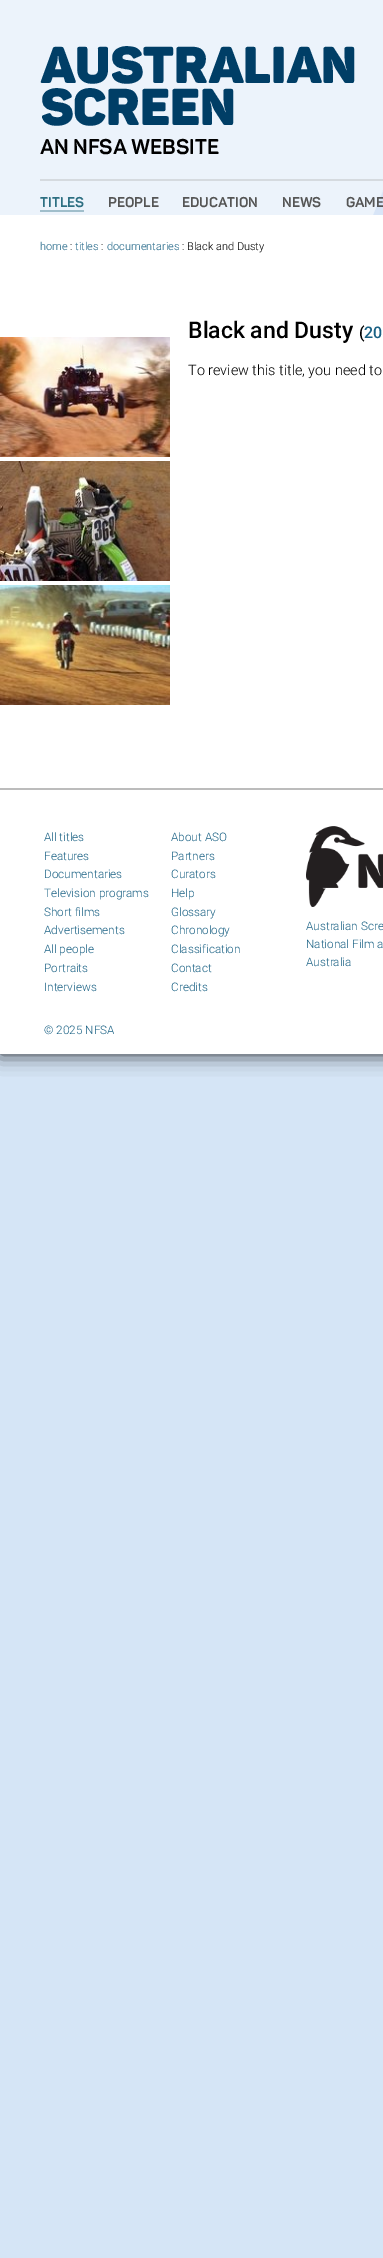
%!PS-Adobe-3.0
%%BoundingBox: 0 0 383 2258
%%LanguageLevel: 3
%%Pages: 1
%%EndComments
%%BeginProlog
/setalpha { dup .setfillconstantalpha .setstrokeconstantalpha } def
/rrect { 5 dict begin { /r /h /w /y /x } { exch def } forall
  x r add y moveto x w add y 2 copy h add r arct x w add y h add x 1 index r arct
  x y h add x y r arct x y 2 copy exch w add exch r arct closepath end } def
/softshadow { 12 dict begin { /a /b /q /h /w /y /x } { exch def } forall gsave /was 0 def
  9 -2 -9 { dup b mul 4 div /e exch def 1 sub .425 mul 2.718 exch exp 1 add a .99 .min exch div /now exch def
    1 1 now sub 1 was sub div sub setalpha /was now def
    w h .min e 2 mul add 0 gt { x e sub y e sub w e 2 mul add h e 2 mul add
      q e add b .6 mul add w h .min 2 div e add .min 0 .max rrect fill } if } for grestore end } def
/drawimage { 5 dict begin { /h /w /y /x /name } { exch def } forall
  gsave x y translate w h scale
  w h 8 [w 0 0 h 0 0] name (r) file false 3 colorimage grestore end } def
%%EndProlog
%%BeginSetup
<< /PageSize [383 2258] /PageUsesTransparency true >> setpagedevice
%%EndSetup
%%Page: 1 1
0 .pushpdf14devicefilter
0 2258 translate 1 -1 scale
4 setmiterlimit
0.835 0.898 0.965 setrgbcolor
0 0 383 2258 rectfill
0 setgray
0 0 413 1054 0 10 0.8 softshadow
0.925 0.953 0.984 setrgbcolor
0 0 383 215 rectfill
(images/1.raw) 373 190 10 25 drawimage
0.835 0.855 0.875 setrgbcolor
40 179 343 2 rectfill
0.627 0.745 0.796 setrgbcolor
40 210 44 2 rectfill
1 setgray
0 215 383 573 rectfill
(images/2.raw) 0 337 170 120 drawimage
(images/3.raw) 0 461 170 120 drawimage
(images/4.raw) 0 585 170 120 drawimage
0 790 383 264 rectfill
0.737 setgray
0 788 383 2 rectfill
(images/5.raw) 306 826 77 81 drawimage
/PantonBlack-Regular [51 0 0 -51 0 0] selectfont
0 0.243 0.4 setrgbcolor
40 83 moveto (AUSTRALIAN) show
40 125 moveto (SCREEN) show
/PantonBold-Regular [21 0 0 -21 0 0] selectfont
0 setgray
40 154 moveto (AN NFSA WEBSITE) show
/PantonBold-Regular [14 0 0 -14 0 0] selectfont
0.176 0.435 0.51 setrgbcolor
40 207 moveto (TITLES) show
0.333 setgray
108 207 moveto (PEOPLE) show
182 207 moveto (EDUCATION) show
282 207 moveto (NEWS) show
346 207 moveto (GAME) show
/Roboto-Light [11 0 0 -11 0 0] selectfont
0.102 0.38 0.518 setrgbcolor
40 250 moveto (home) show
0 setgray
70 250 moveto (:) show
0.102 0.38 0.518 setrgbcolor
75 250 moveto (titles) show
0 setgray
101 250 moveto (:) show
0.102 0.38 0.518 setrgbcolor
107 250 moveto (documentaries) show
0 setgray
182 250 moveto (: Black and Dusty) show
/Roboto-Medium [23 0 0 -23 0 0] selectfont
188 338 moveto (Black and Dusty) show
/Roboto-Medium [16 0 0 -16 0 0] selectfont
359 338 moveto (\() show
0.102 0.38 0.518 setrgbcolor
364 338 moveto (20) show
/Roboto-Light [14.4 0 0 -14.4 0 0] selectfont
0 setgray
188 375 moveto (To review this title, you need to) show
/Roboto-Light [11.75 0 0 -11.75 0 0] selectfont
0.102 0.38 0.518 setrgbcolor
44 841 moveto (All titles) show
44 860 moveto (Features) show
44 878 moveto (Documentaries) show
44 897 moveto (Television programs) show
44 916 moveto (Short films) show
44 934 moveto (Advertisements) show
44 953 moveto (All people) show
44 972 moveto (Portraits) show
44 991 moveto (Interviews) show
171 841 moveto (About ASO) show
171 860 moveto (Partners) show
171 878 moveto (Curators) show
171 897 moveto (Help) show
171 916 moveto (Glossary) show
171 934 moveto (Chronology) show
171 953 moveto (Classification) show
171 972 moveto (Contact) show
171 991 moveto (Credits) show
306 930 moveto (Australian Scre) show
306 948 moveto (National Film a) show
306 966 moveto (Australia) show
44 1034 moveto (© 2025 NFSA) show
.poppdf14devicefilter showpage
%%EOF
